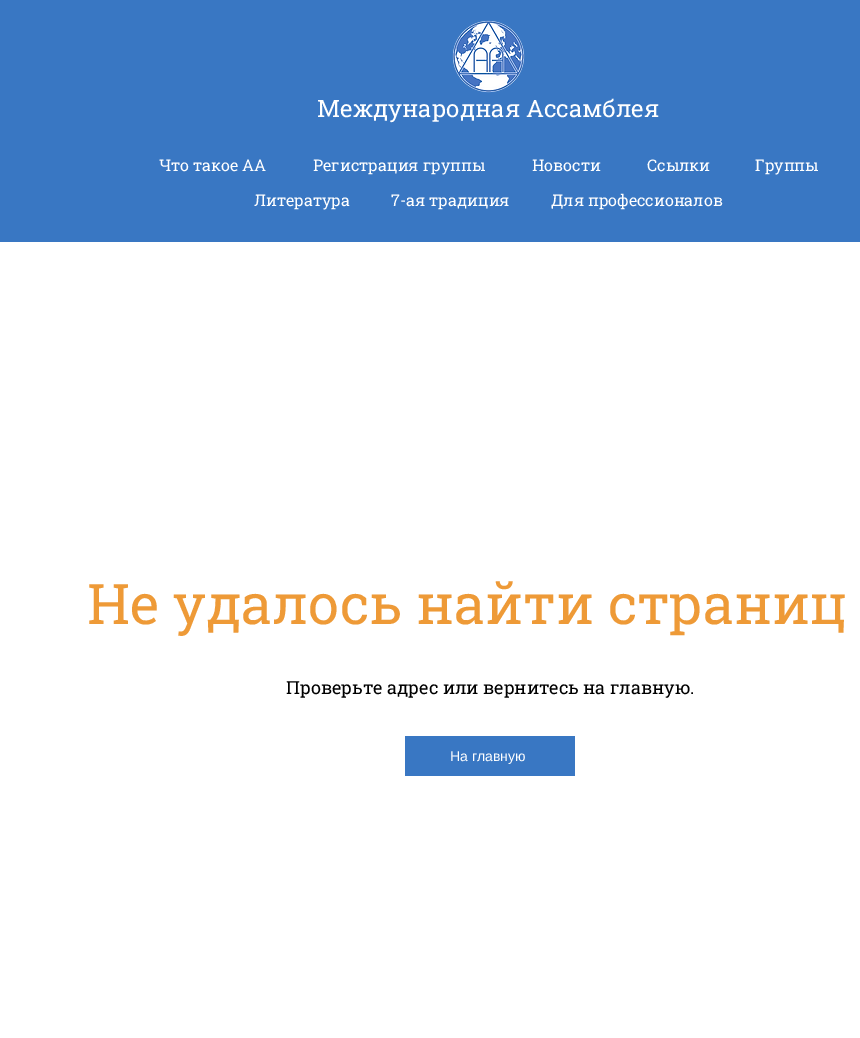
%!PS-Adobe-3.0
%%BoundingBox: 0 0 860 1038
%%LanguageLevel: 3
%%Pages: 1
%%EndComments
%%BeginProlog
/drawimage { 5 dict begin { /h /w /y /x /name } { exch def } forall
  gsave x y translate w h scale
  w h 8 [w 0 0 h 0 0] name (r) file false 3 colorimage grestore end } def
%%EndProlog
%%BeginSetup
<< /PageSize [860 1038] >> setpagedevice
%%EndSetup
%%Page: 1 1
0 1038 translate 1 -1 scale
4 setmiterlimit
1 setgray
0 0 860 1038 rectfill
0.224 0.467 0.765 setrgbcolor
0 0 860 242 rectfill
(images/1.raw) 452 20 73 73 drawimage
405 736 170 40 rectfill
/RobotoSlab-Regular [24 0 0 -24 0 0] selectfont
1 setgray
317 117 moveto (Международная Ассамблея) show
/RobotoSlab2-Regular [16 0 0 -16 0 0] selectfont
159 171 moveto (Что такое АА) show
313 171 moveto (Регистрация группы) show
532 171 moveto (Новости) show
647 171 moveto (Ссылки) show
755 171 moveto (Группы) show
254 206 moveto (Литература) show
391 206 moveto (7-ая традиция) show
551 206 moveto (Для профессионалов) show
/RobotoSlab-Regular [56 0 0 -56 0 0] selectfont
0.933 0.604 0.216 setrgbcolor
87 624 moveto (Не удалось найти страниц) show
/RobotoSlab-Regular [18 0 0 -18 0 0] selectfont
0 setgray
286 694 moveto (Проверьте адрес или вернитесь на главную.) show
/LiberationSans-Regular [14 0 0 -14 0 0] selectfont
1 setgray
450 761 moveto (На главную) show
showpage
%%EOF
